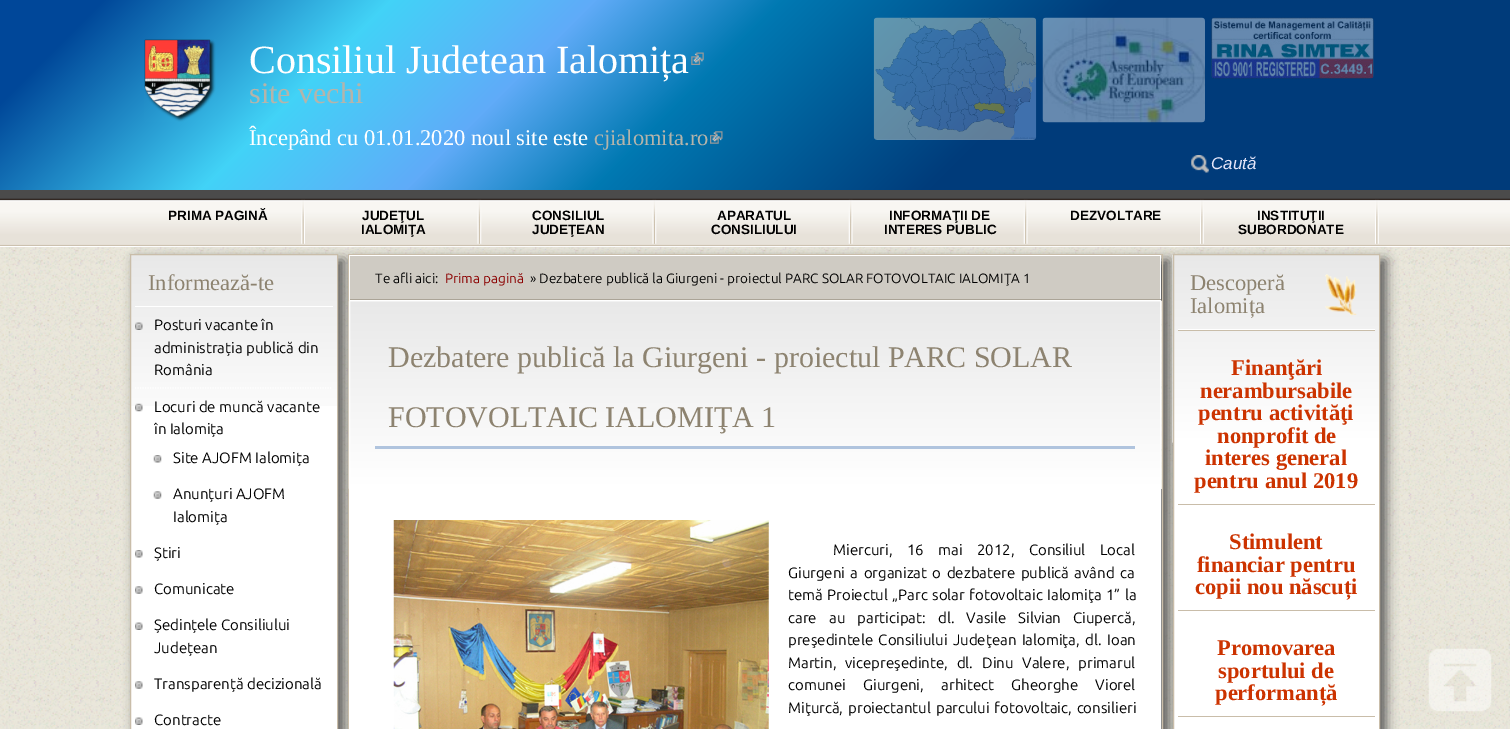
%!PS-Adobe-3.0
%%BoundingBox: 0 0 1510 729
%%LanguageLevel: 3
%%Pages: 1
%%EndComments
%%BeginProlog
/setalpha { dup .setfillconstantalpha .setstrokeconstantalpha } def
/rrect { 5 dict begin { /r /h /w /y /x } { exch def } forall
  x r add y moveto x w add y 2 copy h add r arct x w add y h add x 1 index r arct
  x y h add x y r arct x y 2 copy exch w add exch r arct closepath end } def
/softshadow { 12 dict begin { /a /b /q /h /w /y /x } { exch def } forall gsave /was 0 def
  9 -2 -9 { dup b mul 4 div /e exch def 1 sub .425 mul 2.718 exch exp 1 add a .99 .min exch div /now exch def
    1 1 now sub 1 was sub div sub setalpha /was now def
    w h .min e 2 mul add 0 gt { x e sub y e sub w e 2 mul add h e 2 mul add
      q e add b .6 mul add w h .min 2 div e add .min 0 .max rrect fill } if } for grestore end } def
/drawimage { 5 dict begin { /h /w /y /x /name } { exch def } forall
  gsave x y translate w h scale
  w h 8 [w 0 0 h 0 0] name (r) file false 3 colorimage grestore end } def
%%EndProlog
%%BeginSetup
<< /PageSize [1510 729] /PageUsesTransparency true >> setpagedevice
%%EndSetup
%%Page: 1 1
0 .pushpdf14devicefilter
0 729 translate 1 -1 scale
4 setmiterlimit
0.918 0.906 0.859 setrgbcolor
0 0 1510 729 rectfill
(images/1.raw) 0 247 1510 482 drawimage
gsave newpath 0 0 moveto 1510 0 lineto 1510 190 lineto 0 190 lineto closepath clip newpath
<< /ShadingType 2 /ColorSpace /DeviceRGB /Coords [330 -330 1180 520] /Extend [true true] /Function << /FunctionType 3 /Domain [0 1] /Functions [<< /FunctionType 2 /Domain [0 1] /C0 [0 0.278 0.6] /C1 [0 0.278 0.6] /N 1 >> << /FunctionType 2 /Domain [0 1] /C0 [0 0.278 0.6] /C1 [0.259 0.827 0.969] /N 1 >> << /FunctionType 2 /Domain [0 1] /C0 [0.259 0.827 0.969] /C1 [0.376 0.671 0.973] /N 1 >> << /FunctionType 2 /Domain [0 1] /C0 [0.376 0.671 0.973] /C1 [0 0.475 0.698] /N 1 >> << /FunctionType 2 /Domain [0 1] /C0 [0 0.475 0.698] /C1 [0 0.231 0.478] /N 1 >> << /FunctionType 2 /Domain [0 1] /C0 [0 0.231 0.478] /C1 [0 0.231 0.478] /N 1 >>] /Bounds [0.06 0.23 0.35 0.46 0.66] /Encode [0 1 0 1 0 1 0 1 0 1 0 1] >> >> shfill grestore
(images/2.raw) 144 39 72 83 drawimage
(images/3.raw) 691 52 13 13 drawimage
(images/4.raw) 710 131 13 13 drawimage
(images/5.raw) 873 17 164 123 drawimage
(images/6.raw) 1042 17 163 106 drawimage
(images/7.raw) 1211 17 163 62 drawimage
(images/8.raw) 1428 648 64 64 drawimage
(images/9.raw) 1191 155 18 18 drawimage
0.294 setgray
0 190 1510 9 rectfill
(images/10.raw) 0 198 1510 48 drawimage
1 setgray
0 246 1510 1 rectfill
0.333 setgray
136 260 208 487 0 6 1 softshadow
(images/11.raw) 301 199 4 45 drawimage
1 setgray
131 406 206 323 rectfill
(images/15.raw) 131 255 206 151 drawimage
0.788 0.741 0.663 setrgbcolor
130.5 254.5 207 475 rectstroke
0.333 setgray
354 260 815 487 0 6 1 softshadow
(images/12.raw) 477 199 5 45 drawimage
(images/12.raw) 652 199 5 45 drawimage
(images/13.raw) 848 199 5 45 drawimage
(images/13.raw) 1023 199 5 45 drawimage
0.788 0.741 0.663 setrgbcolor
348.5 254.5 814 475 rectstroke
1 setgray
349 255 812 1 rectfill
1160 255 1 45 rectfill
0.671 0.643 0.592 setrgbcolor
349 299 812 1 rectfill
1 setgray
350 301 810 428 rectfill
(images/24.raw) 348 301 814 188 drawimage
349.5 300.5 811 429 rectstroke
0.333 setgray
1179 260 207 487 0 6 1 softshadow
(images/14.raw) 1200 199 4 45 drawimage
(images/14.raw) 1375 199 4 45 drawimage
1 setgray
135 306 198 1 rectfill
(images/16.raw) 135 322 8 8 drawimage
1.2 setlinewidth
[1.25 1.25] 0 setdash
newpath 135 388 moveto 332.5 388 lineto stroke
(images/17.raw) 135 403 8 9 drawimage
(images/18.raw) 153 455 9 8 drawimage
(images/19.raw) 153 491 9 8 drawimage
(images/20.raw) 135 550 8 8 drawimage
(images/21.raw) 135 586 8 8 drawimage
(images/22.raw) 135 622 8 8 drawimage
(images/23.raw) 135 681 8 8 drawimage
(images/22.raw) 135 717 8 8 drawimage
0.812 0.796 0.765 setrgbcolor
350 256 810 43 rectfill
1 setgray
349 255 1 45 rectfill
0.69 0.769 0.871 setrgbcolor
375 446 760 3 rectfill
(images/25.raw) 393 520 376 209 drawimage
1 setgray
1174 442 205 287 rectfill
(images/26.raw) 1172 255 207 188 drawimage
0.788 0.741 0.663 setrgbcolor
1 setlinewidth
[] 0 setdash
1173.5 254.5 206 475 rectstroke
1178 330 197 1 rectfill
1 setgray
1178 329 197 1 rectfill
(images/27.raw) 1325 274 32 42 drawimage
0.788 0.741 0.663 setrgbcolor
1178 504 197 1 rectfill
1178 610 197 1 rectfill
1178 716 197 1 rectfill
/LiberationSerif-Regular [40 0 0 -40 0 0] selectfont
1 setgray
249 73 moveto (Consiliul Judetean Ialomița) show
/LiberationSerif-Regular [30 0 0 -30 0 0] selectfont
0.71 0.706 0.667 setrgbcolor
249 103 moveto (site vechi) show
/LiberationSerif-Regular [22.5 0 0 -22.5 0 0] selectfont
1 setgray
249 145 moveto (Începând cu 01.01.2020 noul site este) show
0.71 0.706 0.667 setrgbcolor
594 145 moveto (cjialomita.ro) show
/LiberationSans-Italic [17 0 0 -17 0 0] selectfont
0.902 0.902 0.98 setrgbcolor
1211 169 moveto (Caută) show
/LiberationSans-Bold [13.5 0 0 -13.5 0 0] selectfont
0 setgray
168 220 moveto (PRIMA PAGINĂ) show
362 220 moveto (JUDEŢUL) show
361 234 moveto (IALOMIŢA) show
532 220 moveto (CONSILIUL) show
532 234 moveto (JUDEŢEAN) show
717 220 moveto (APARATUL) show
711 234 moveto (CONSILIULUI) show
889 220 moveto (INFORMAŢII DE) show
884 234 moveto (INTERES PUBLIC) show
1070 220 moveto (DEZVOLTARE) show
1257 220 moveto (INSTITUŢII) show
1238 234 moveto (SUBORDONATE) show
/LiberationSerif-Regular [22.5 0 0 -22.5 0 0] selectfont
0.553 0.514 0.439 setrgbcolor
148 290 moveto (Informează-te) show
/Ubuntu-Regular [15 0 0 -15 0 0] selectfont
0 setgray
154 330 moveto (Posturi vacante în) show
154 353 moveto (administrația publică din) show
154 375 moveto (România) show
154 412 moveto (Locuri de muncă vacante) show
154 434 moveto (în Ialomița) show
173 463 moveto (Site AJOFM Ialomița) show
173 499 moveto (Anunțuri AJOFM) show
173 522 moveto (Ialomița) show
154 558 moveto (Știri) show
154 594 moveto (Comunicate) show
154 630 moveto (Ședințele Consiliului) show
154 653 moveto (Județean) show
154 689 moveto (Transparență decizională) show
154 725 moveto (Contracte) show
/Ubuntu-Regular [13.5 0 0 -13.5 0 0] selectfont
375 283 moveto (Te afli aici:) show
0.545 0 0 setrgbcolor
445 283 moveto (Prima pagină) show
0 setgray
530 283 moveto (» Dezbatere publică la Giurgeni - proiectul PARC SOLAR FOTOVOLTAIC IALOMIŢA 1) show
/LiberationSerif-Regular [30 0 0 -30 0 0] selectfont
0.553 0.514 0.439 setrgbcolor
388 367 moveto (Dezbatere publică la Giurgeni - proiectul PARC SOLAR) show
388 427 moveto (FOTOVOLTAIC IALOMIŢA 1) show
/Ubuntu-Regular [15 0 0 -15 0 0] selectfont
0 setgray
833 555 moveto 11 0 32 (Miercuri, 16 mai 2012, Consiliul Local) widthshow
788 578 moveto 2 0 32 (Giurgeni a organizat o dezbatere publică având ca) widthshow
788 600 moveto 1 0 32 (temă Proiectul „Parc solar fotovoltaic Ialomiţa 1” la) widthshow
788 623 moveto 8.75 0 32 (care au participat: dl. Vasile Silvian Ciupercă,) widthshow
788 645 moveto 2 0 32 (preşedintele Consiliului Judeţean Ialomiţa, dl. Ioan) widthshow
788 668 moveto 5.5 0 32 (Martin, vicepreşedinte, dl. Dinu Valere, primarul) widthshow
788 690 moveto 14 0 32 (comunei Giurgeni, arhitect Gheorghe Viorel) widthshow
788 713 moveto 1.5 0 32 (Miţurcă, proiectantul parcului fotovoltaic, consilieri) widthshow
/LiberationSerif-Regular [22.5 0 0 -22.5 0 0] selectfont
0.553 0.514 0.439 setrgbcolor
1190 290 moveto (Descoperă) show
1190 313 moveto (Ialomița) show
/LiberationSerif-Bold [22.5 0 0 -22.5 0 0] selectfont
0.8 0.2 0 setrgbcolor
1231 375 moveto (Finanţări) show
1200 398 moveto (nerambursabile) show
1198 420 moveto (pentru activităţi) show
1217 443 moveto (nonprofit de) show
1205 465 moveto (interes general) show
1194 488 moveto (pentru anul 2019) show
1229 549 moveto (Stimulent) show
1197 572 moveto (financiar pentru) show
1195 594 moveto (copii nou născuți) show
1217 655 moveto (Promovarea) show
1218 678 moveto (sportului de) show
1215 700 moveto (performanță) show
.poppdf14devicefilter showpage
%%EOF
